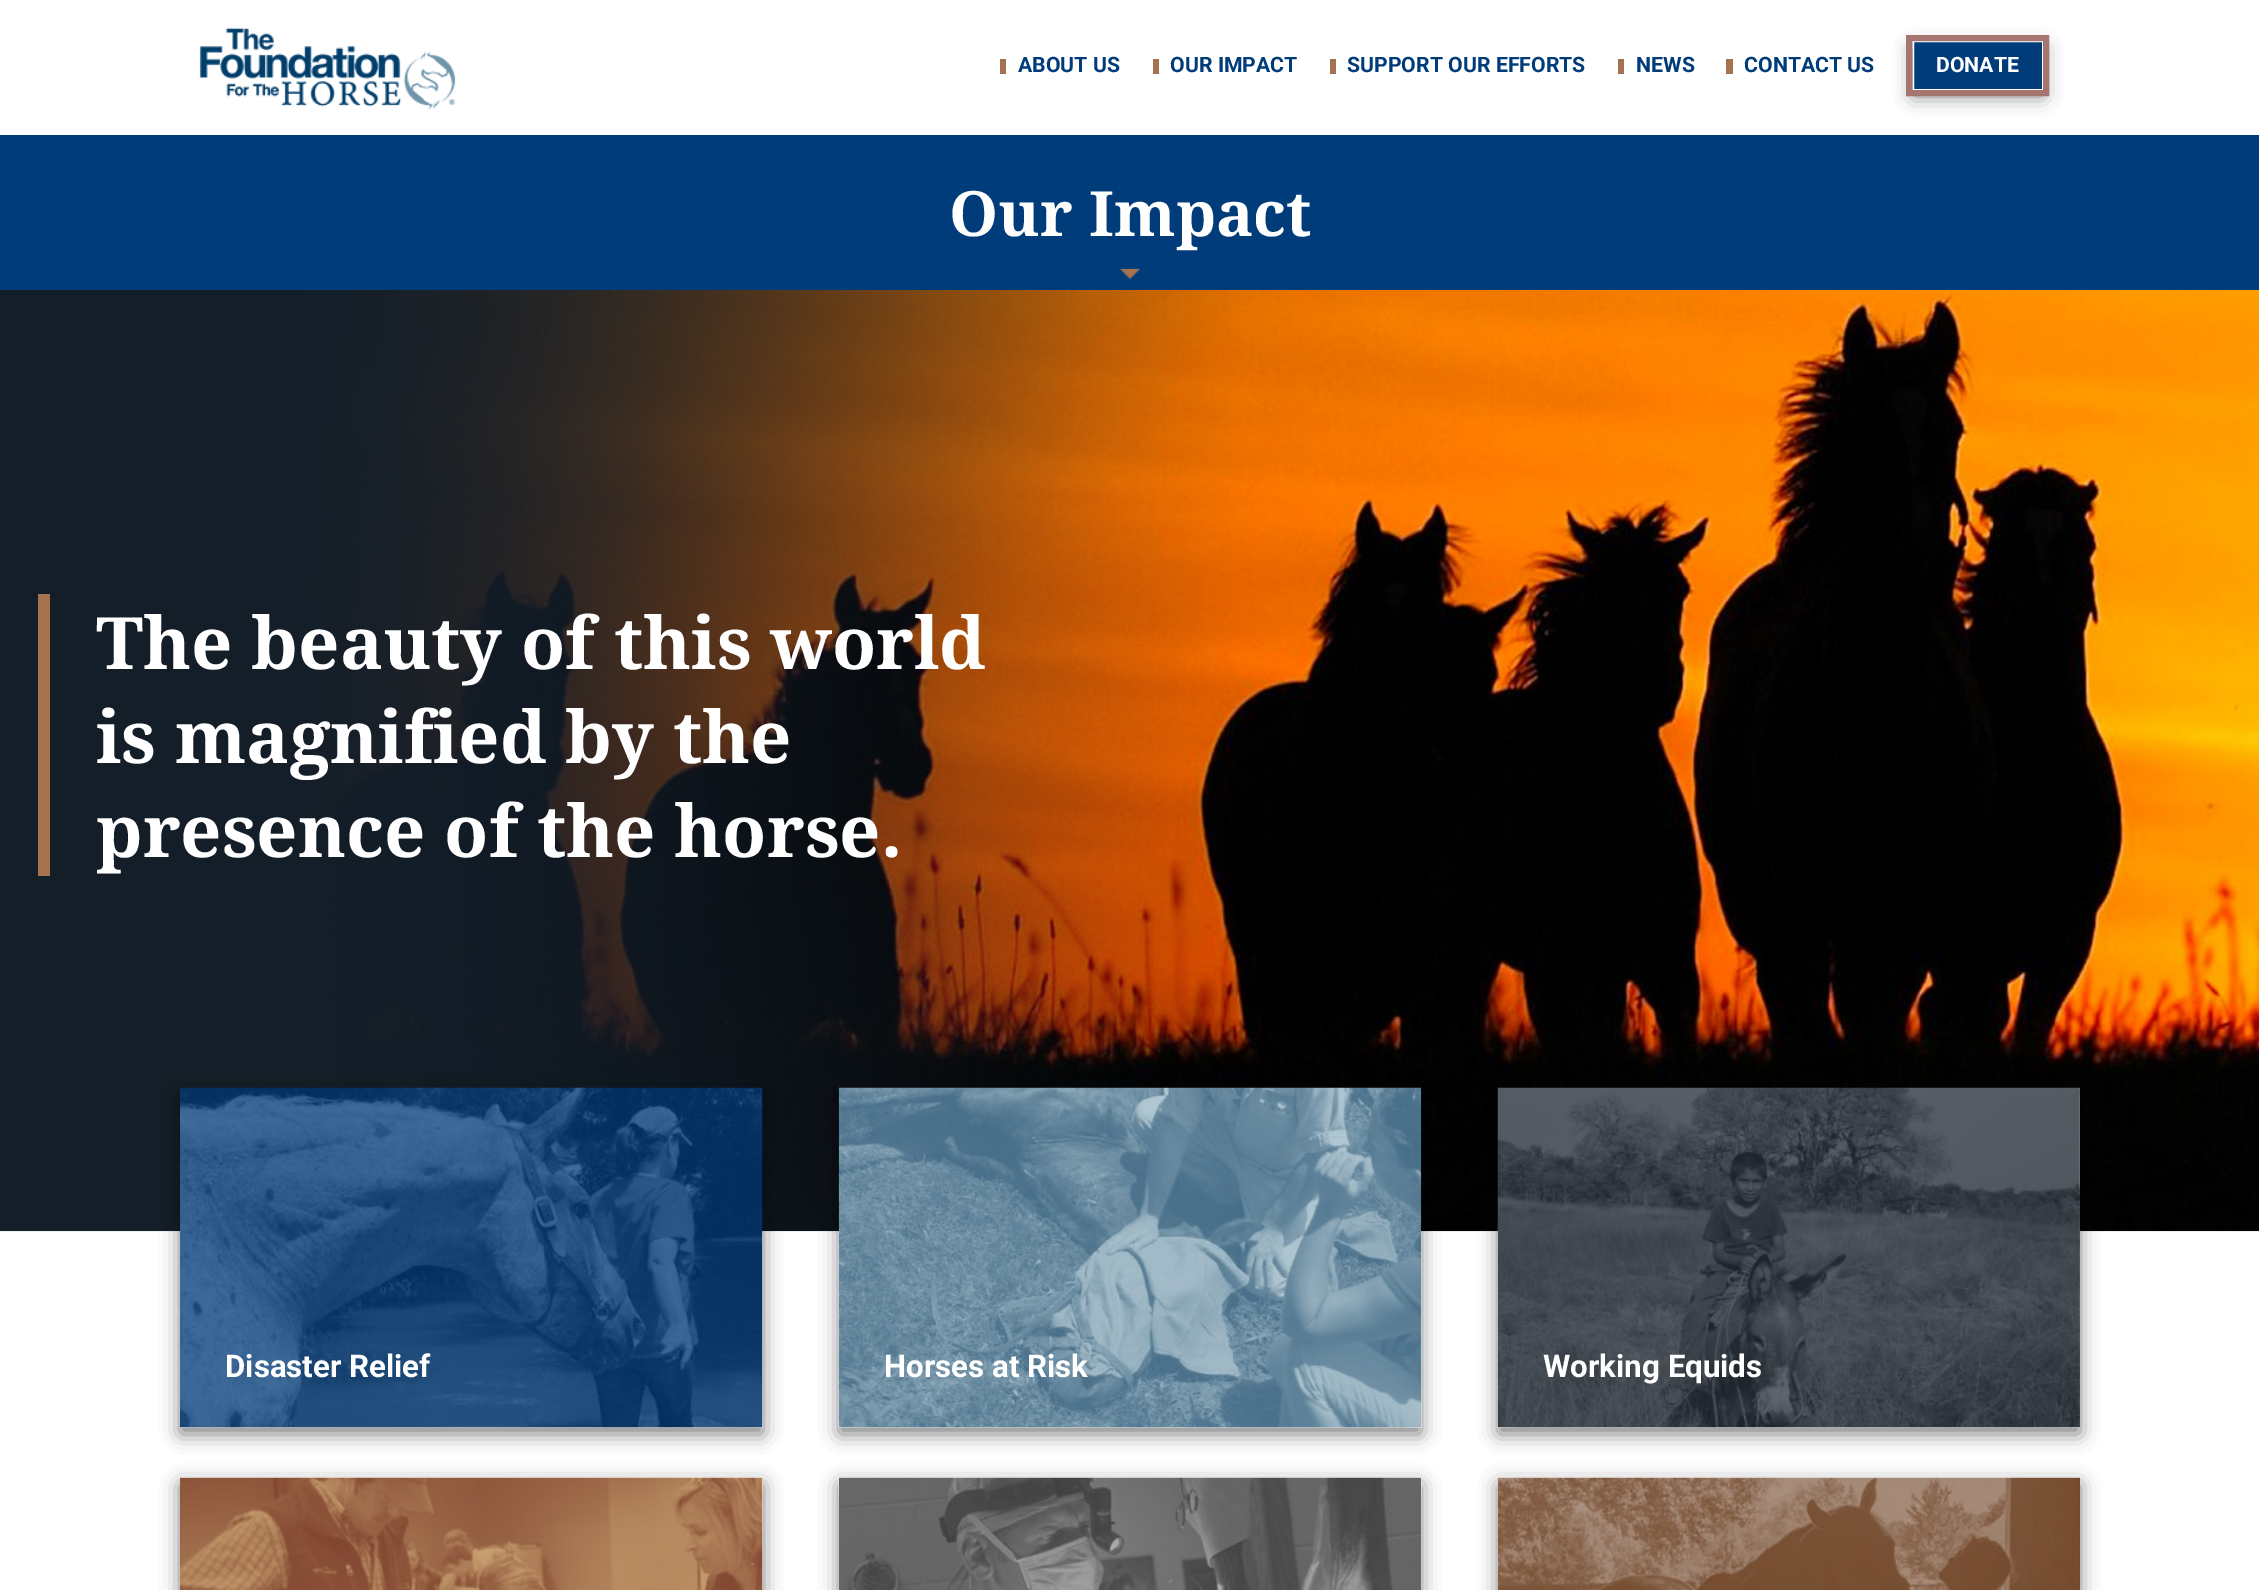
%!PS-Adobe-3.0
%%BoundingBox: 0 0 2259 1590
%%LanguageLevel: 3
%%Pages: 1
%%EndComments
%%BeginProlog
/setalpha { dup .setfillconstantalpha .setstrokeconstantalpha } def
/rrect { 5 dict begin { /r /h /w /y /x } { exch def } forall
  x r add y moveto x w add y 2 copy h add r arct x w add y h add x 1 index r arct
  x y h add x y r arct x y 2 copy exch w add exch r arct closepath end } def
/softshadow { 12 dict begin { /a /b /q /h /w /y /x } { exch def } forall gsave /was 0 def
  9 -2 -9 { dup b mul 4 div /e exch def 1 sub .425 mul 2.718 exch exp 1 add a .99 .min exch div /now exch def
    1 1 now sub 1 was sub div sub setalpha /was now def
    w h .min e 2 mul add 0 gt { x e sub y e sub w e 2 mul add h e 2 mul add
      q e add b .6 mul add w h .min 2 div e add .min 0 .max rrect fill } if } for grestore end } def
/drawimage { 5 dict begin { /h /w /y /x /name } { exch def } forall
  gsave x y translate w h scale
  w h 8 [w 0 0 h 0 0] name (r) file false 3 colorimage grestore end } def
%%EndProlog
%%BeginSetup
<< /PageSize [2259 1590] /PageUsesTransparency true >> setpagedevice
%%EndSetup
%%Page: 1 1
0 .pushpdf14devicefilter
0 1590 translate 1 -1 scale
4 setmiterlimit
1 setgray
0 0 2259 1590 rectfill
(images/1.raw) 199 27 257 83 drawimage
0.647 0.451 0.314 setrgbcolor
1000 59 6 15 rectfill
1153 59 6 15 rectfill
1330 59 6 15 rectfill
1618 59 6 15 rectfill
1726 59 7 15 rectfill
0 setgray
1913 48 130 48 0 9.5 0.5 softshadow
0 0.235 0.478 setrgbcolor
newpath 1913.5 41.5 moveto 2042.5 41.5 lineto 2042.5 89.5 lineto 1913.5 89.5 lineto closepath gsave fill grestore
1 setgray
stroke
0.647 0.459 0.439 setrgbcolor
6 setlinewidth
1909 38 137 55 rectstroke
0 0.235 0.478 setrgbcolor
0 135 2259 155 rectfill
(images/2.raw) 1120 268 20 11 drawimage
(images/3.raw) 0 290 2259 942 drawimage
0.647 0.451 0.314 setrgbcolor
38 594 12 282 rectfill
0 setgray
180 1094 583 340 0 9.5 0.5 softshadow
(images/4.raw) 180 1087 583 341 drawimage
839 1094 582 340 0 9.5 0.5 softshadow
(images/5.raw) 838 1087 584 341 drawimage
1498 1094 582 340 0 9.5 0.5 softshadow
(images/6.raw) 1497 1087 583 341 drawimage
180 1484 583 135 0 9.5 0.5 softshadow
(images/7.raw) 180 1477 583 113 drawimage
839 1484 582 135 0 9.5 0.5 softshadow
(images/8.raw) 838 1477 584 113 drawimage
1498 1484 582 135 0 9.5 0.5 softshadow
(images/9.raw) 1497 1477 583 113 drawimage
/Roboto-Bold [21.25 0 0 -21.25 0 0] selectfont
0 0.235 0.478 setrgbcolor
1018 72 moveto (ABOUT US) show
1170 72 moveto (OUR IMPACT) show
1347 72 moveto (SUPPORT OUR EFFORTS) show
1636 72 moveto (NEWS) show
1744 72 moveto (CONTACT US) show
1 setgray
1936 72 moveto (DONATE) show
/NotoSerif-Bold [62.5 0 0 -62.5 0 0] selectfont
949 236 moveto (Our Impact) show
/NotoSerif-Bold [72.25 0 0 -72.25 0 0] selectfont
96 669 moveto (The beauty of this world) show
96 763 moveto (is magnified by the) show
96 857 moveto (presence of the horse.) show
/Roboto-Bold [31.25 0 0 -31.25 0 0] selectfont
225 1377 moveto (Disaster Relief) show
884 1377 moveto (Horses at Risk) show
1543 1377 moveto (Working Equids) show
.poppdf14devicefilter showpage
%%EOF
